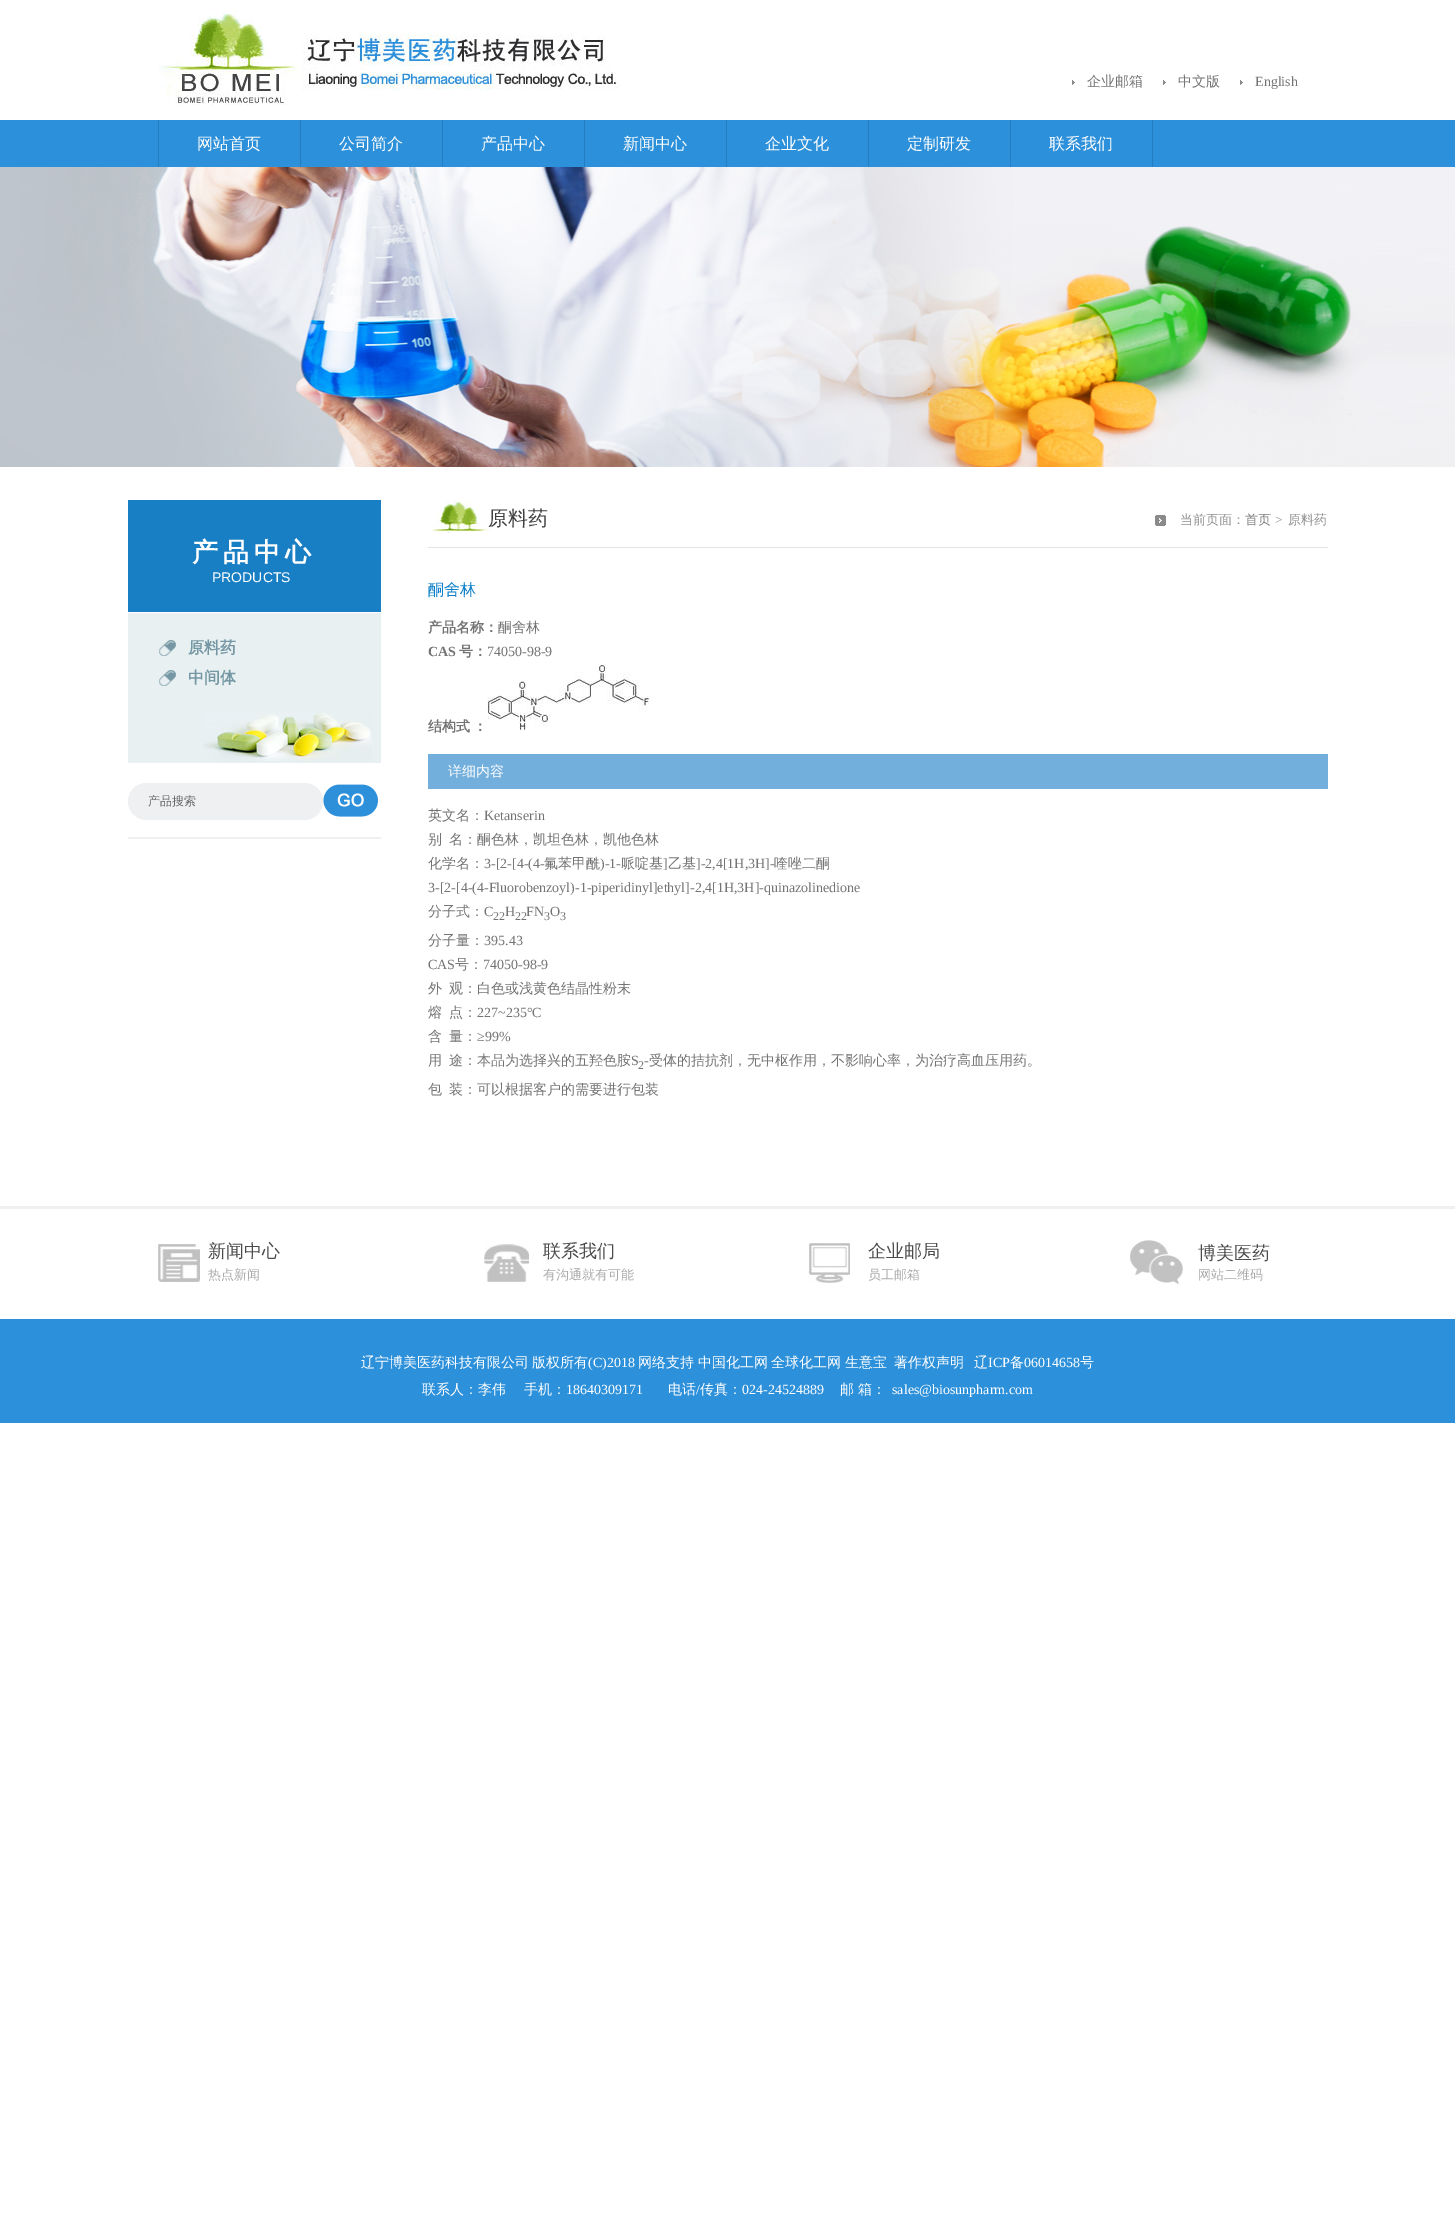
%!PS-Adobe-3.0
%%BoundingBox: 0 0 1455 2233
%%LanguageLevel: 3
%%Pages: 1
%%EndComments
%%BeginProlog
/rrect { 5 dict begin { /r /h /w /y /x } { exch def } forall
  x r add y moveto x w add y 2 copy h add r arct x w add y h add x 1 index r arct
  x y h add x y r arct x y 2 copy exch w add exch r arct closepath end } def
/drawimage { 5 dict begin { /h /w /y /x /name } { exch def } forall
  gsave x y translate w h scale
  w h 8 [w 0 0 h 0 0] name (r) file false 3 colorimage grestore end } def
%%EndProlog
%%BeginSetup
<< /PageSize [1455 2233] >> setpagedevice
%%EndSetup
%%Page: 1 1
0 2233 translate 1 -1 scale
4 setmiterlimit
1 setgray
0 0 1455 2233 rectfill
(images/1.raw) 159 10 462 95 drawimage
(images/2.raw) 1072 80 3 5 drawimage
(images/2.raw) 1163 80 3 5 drawimage
(images/2.raw) 1240 80 3 5 drawimage
0.176 0.565 0.855 setrgbcolor
0 120 1455 47 rectfill
0.137 0.49 0.757 setrgbcolor
158 120 1 47 rectfill
300 120 1 47 rectfill
442 120 1 47 rectfill
584 120 1 47 rectfill
726 120 1 47 rectfill
868 120 1 47 rectfill
1010 120 1 47 rectfill
1152 120 1 47 rectfill
(images/3.raw) 0 167 1455 300 drawimage
0.094 0.498 0.769 setrgbcolor
128 500 253 112 rectfill
0.91 0.941 0.949 setrgbcolor
128 613 253 150 rectfill
(images/4.raw) 203 713 169 49 drawimage
(images/5.raw) 159 640 17 16 drawimage
(images/5.raw) 159 670 17 16 drawimage
0.937 0.941 0.949 setrgbcolor
128 837 253 2 rectfill
128 783 195 37 18.5 rrect fill
(images/6.raw) 323 784 55 33 drawimage
(images/7.raw) 428 500 63 33 drawimage
0.886 setgray
428 547 900 1 rectfill
(images/8.raw) 1155 515 11 11 drawimage
(images/9.raw) 487 664 163 67 drawimage
0.451 0.686 0.863 setrgbcolor
428 754 900 35 rectfill
0.937 0.941 0.949 setrgbcolor
0 1206 1455 3 rectfill
(images/10.raw) 158 1244 42 38 drawimage
(images/11.raw) 484 1244 45 38 drawimage
(images/12.raw) 808 1243 42 40 drawimage
(images/13.raw) 1130 1240 53 44 drawimage
0.176 0.565 0.855 setrgbcolor
0 1319 1455 104 rectfill
/WenQuanYiZenHei-Medium [14 0 0 -14 0 0] selectfont
0.451 setgray
1087 86 moveto (企业邮箱) show
1178 86 moveto (中文版) show
/LiberationSerif-Regular [14 0 0 -14 0 0] selectfont
1255 86 moveto (English) show
/WenQuanYiZenHei-Medium [16 0 0 -16 0 0] selectfont
1 setgray
197 149 moveto (网站首页) show
339 149 moveto (公司简介) show
481 149 moveto (产品中心) show
623 149 moveto (新闻中心) show
765 149 moveto (企业文化) show
907 149 moveto (定制研发) show
1049 149 moveto (联系我们) show
/WenQuanYiZenHei-Bold [26 0 0 -26 0 0] selectfont
192 561 moveto 5 0 (产品中心) ashow
/LiberationSans-Regular [14 0 0 -14 0 0] selectfont
212 582 moveto (PRODUCTS) show
/WenQuanYiZenHei-Bold [16 0 0 -16 0 0] selectfont
0.459 0.592 0.639 setrgbcolor
188 653 moveto (原料药) show
188 683 moveto (中间体) show
/WenQuanYiZenHei-Medium [12 0 0 -12 0 0] selectfont
0.4 setgray
148 805 moveto (产品搜索) show
/WenQuanYiZenHei-Medium [20 0 0 -20 0 0] selectfont
0.247 setgray
488 525 moveto (原料药) show
/WenQuanYiZenHei-Medium [13 0 0 -13 0 0] selectfont
0.557 setgray
1180 524 moveto (当前页面：) show
0.482 setgray
1245 524 moveto (首页) show
/LiberationSerif-Regular [13 0 0 -13 0 0] selectfont
0.557 setgray
1275 524 moveto (>) show
/WenQuanYiZenHei-Medium [13 0 0 -13 0 0] selectfont
1288 524 moveto (原料药) show
/WenQuanYiZenHei-Medium [16 0 0 -16 0 0] selectfont
0.059 0.506 0.792 setrgbcolor
428 595 moveto (酮舍林) show
/WenQuanYiZenHei-Bold [14 0 0 -14 0 0] selectfont
0.451 setgray
428 632 moveto (产品名称：) show
/WenQuanYiZenHei-Medium [14 0 0 -14 0 0] selectfont
498 632 moveto (酮舍林) show
/LiberationSerif-Bold [14 0 0 -14 0 0] selectfont
428 656 moveto (CAS) show
/WenQuanYiZenHei-Bold [14 0 0 -14 0 0] selectfont
459 656 moveto (号：) show
/LiberationSerif-Regular [14 0 0 -14 0 0] selectfont
487 656 moveto (74050-98-9) show
/WenQuanYiZenHei-Bold [14 0 0 -14 0 0] selectfont
428 731 moveto (结构式) show
473 731 moveto (：) show
/WenQuanYiZenHei-Medium [14 0 0 -14 0 0] selectfont
1 setgray
448 776 moveto (详细内容) show
0.451 setgray
428 820 moveto (英文名：) show
/LiberationSerif-Regular [14 0 0 -14 0 0] selectfont
484 820 moveto (Ketanserin) show
/WenQuanYiZenHei-Medium [14 0 0 -14 0 0] selectfont
428 844 moveto (别) show
449 844 moveto (名：酮色林，凯坦色林，凯他色林) show
428 868 moveto (化学名：) show
/LiberationSerif-Regular [14 0 0 -14 0 0] selectfont
484 868 moveto (3-[2-[4-\(4-) show
/WenQuanYiZenHei-Medium [14 0 0 -14 0 0] selectfont
544 868 moveto (氟苯甲酰) show
/LiberationSerif-Regular [14 0 0 -14 0 0] selectfont
600 868 moveto (\)-1-) show
/WenQuanYiZenHei-Medium [14 0 0 -14 0 0] selectfont
621 868 moveto (哌啶基) show
/LiberationSerif-Regular [14 0 0 -14 0 0] selectfont
663 868 moveto (]) show
/WenQuanYiZenHei-Medium [14 0 0 -14 0 0] selectfont
668 868 moveto (乙基) show
/LiberationSerif-Regular [14 0 0 -14 0 0] selectfont
696 868 moveto (]-2,4[1H,3H]-) show
/WenQuanYiZenHei-Medium [14 0 0 -14 0 0] selectfont
774 868 moveto (喹唑二酮) show
/LiberationSerif-Regular [14 0 0 -14 0 0] selectfont
428 892 moveto (3-[2-[4-\(4-Fluorobenzoyl\)-1-piperidinyl]ethyl]-2,4[1H,3H]-quinazolinedione) show
/WenQuanYiZenHei-Medium [14 0 0 -14 0 0] selectfont
428 916 moveto (分子式：) show
/LiberationSerif-Regular [14 0 0 -14 0 0] selectfont
484 916 moveto (C) show
/LiberationSerif-Regular [12 0 0 -12 0 0] selectfont
493 920 moveto (22) show
/LiberationSerif-Regular [14 0 0 -14 0 0] selectfont
505 916 moveto (H) show
/LiberationSerif-Regular [12 0 0 -12 0 0] selectfont
515 920 moveto (22) show
/LiberationSerif-Regular [14 0 0 -14 0 0] selectfont
526 916 moveto (FN) show
/LiberationSerif-Regular [12 0 0 -12 0 0] selectfont
544 920 moveto (3) show
/LiberationSerif-Regular [14 0 0 -14 0 0] selectfont
550 916 moveto (O) show
/LiberationSerif-Regular [12 0 0 -12 0 0] selectfont
560 920 moveto (3) show
/WenQuanYiZenHei-Medium [14 0 0 -14 0 0] selectfont
428 945 moveto (分子量：) show
/LiberationSerif-Regular [14 0 0 -14 0 0] selectfont
484 945 moveto (395.43) show
428 969 moveto (CAS) show
/WenQuanYiZenHei-Medium [14 0 0 -14 0 0] selectfont
455 969 moveto (号：) show
/LiberationSerif-Regular [14 0 0 -14 0 0] selectfont
483 969 moveto (74050-98-9) show
/WenQuanYiZenHei-Medium [14 0 0 -14 0 0] selectfont
428 993 moveto (外) show
449 993 moveto (观：白色或浅黄色结晶性粉末) show
428 1017 moveto (熔) show
449 1017 moveto (点：) show
/LiberationSerif-Regular [14 0 0 -14 0 0] selectfont
477 1017 moveto (227~235°C) show
/WenQuanYiZenHei-Medium [14 0 0 -14 0 0] selectfont
428 1041 moveto (含) show
449 1041 moveto (量：) show
/LiberationSerif-Regular [14 0 0 -14 0 0] selectfont
477 1041 moveto (≥99%) show
/WenQuanYiZenHei-Medium [14 0 0 -14 0 0] selectfont
428 1065 moveto (用) show
449 1065 moveto (途：本品为选择兴的五羟色胺) show
/LiberationSerif-Regular [14 0 0 -14 0 0] selectfont
631 1065 moveto (S) show
/LiberationSerif-Regular [12 0 0 -12 0 0] selectfont
638 1069 moveto (2) show
/LiberationSerif-Regular [14 0 0 -14 0 0] selectfont
644 1065 moveto (-) show
/WenQuanYiZenHei-Medium [14 0 0 -14 0 0] selectfont
649 1065 moveto (受体的拮抗剂，无中枢作用，不影响心率，为治疗高血压用药。) show
428 1094 moveto (包) show
449 1094 moveto (装：可以根据客户的需要进行包装) show
/WenQuanYiZenHei-Medium [18 0 0 -18 0 0] selectfont
0.294 setgray
208 1257 moveto (新闻中心) show
/WenQuanYiZenHei-Medium [13 0 0 -13 0 0] selectfont
0.671 setgray
208 1279 moveto (热点新闻) show
/WenQuanYiZenHei-Medium [18 0 0 -18 0 0] selectfont
0.294 setgray
543 1257 moveto (联系我们) show
/WenQuanYiZenHei-Medium [13 0 0 -13 0 0] selectfont
0.671 setgray
543 1279 moveto (有沟通就有可能) show
/WenQuanYiZenHei-Medium [18 0 0 -18 0 0] selectfont
0.294 setgray
868 1257 moveto (企业邮局) show
/WenQuanYiZenHei-Medium [13 0 0 -13 0 0] selectfont
0.671 setgray
868 1279 moveto (员工邮箱) show
/WenQuanYiZenHei-Medium [18 0 0 -18 0 0] selectfont
0.294 setgray
1198 1259 moveto (博美医药) show
/WenQuanYiZenHei-Medium [13 0 0 -13 0 0] selectfont
0.671 setgray
1198 1279 moveto (网站二维码) show
/WenQuanYiZenHei-Medium [14 0 0 -14 0 0] selectfont
1 setgray
361 1367 moveto (辽宁博美医药科技有限公司) show
532 1367 moveto (版权所有) show
/LiberationSerif-Regular [14 0 0 -14 0 0] selectfont
588 1367 moveto (\(C\)2018) show
/WenQuanYiZenHei-Medium [14 0 0 -14 0 0] selectfont
638 1367 moveto (网络支持) show
698 1367 moveto (中国化工网) show
771 1367 moveto (全球化工网) show
845 1367 moveto (生意宝) show
894 1367 moveto (著作权声明) show
974 1367 moveto (辽) show
/LiberationSerif-Regular [14 0 0 -14 0 0] selectfont
988 1367 moveto (ICP) show
/WenQuanYiZenHei-Medium [14 0 0 -14 0 0] selectfont
1010 1367 moveto (备) show
/LiberationSerif-Regular [14 0 0 -14 0 0] selectfont
1024 1367 moveto (06014658) show
/WenQuanYiZenHei-Medium [14 0 0 -14 0 0] selectfont
1080 1367 moveto (号) show
422 1394 moveto (联系人：李伟) show
524 1394 moveto (手机：) show
/LiberationSerif-Regular [14 0 0 -14 0 0] selectfont
566 1394 moveto (18640309171) show
/WenQuanYiZenHei-Medium [14 0 0 -14 0 0] selectfont
668 1394 moveto (电话) show
/LiberationSerif-Regular [14 0 0 -14 0 0] selectfont
696 1394 moveto (/) show
/WenQuanYiZenHei-Medium [14 0 0 -14 0 0] selectfont
700 1394 moveto (传真：) show
/LiberationSerif-Regular [14 0 0 -14 0 0] selectfont
742 1394 moveto (024-24524889) show
/WenQuanYiZenHei-Medium [14 0 0 -14 0 0] selectfont
840 1394 moveto (邮 箱：) show
/LiberationSerif-Regular [14 0 0 -14 0 0] selectfont
892 1394 moveto (sales@biosunpharm.com) show
showpage
%%EOF
